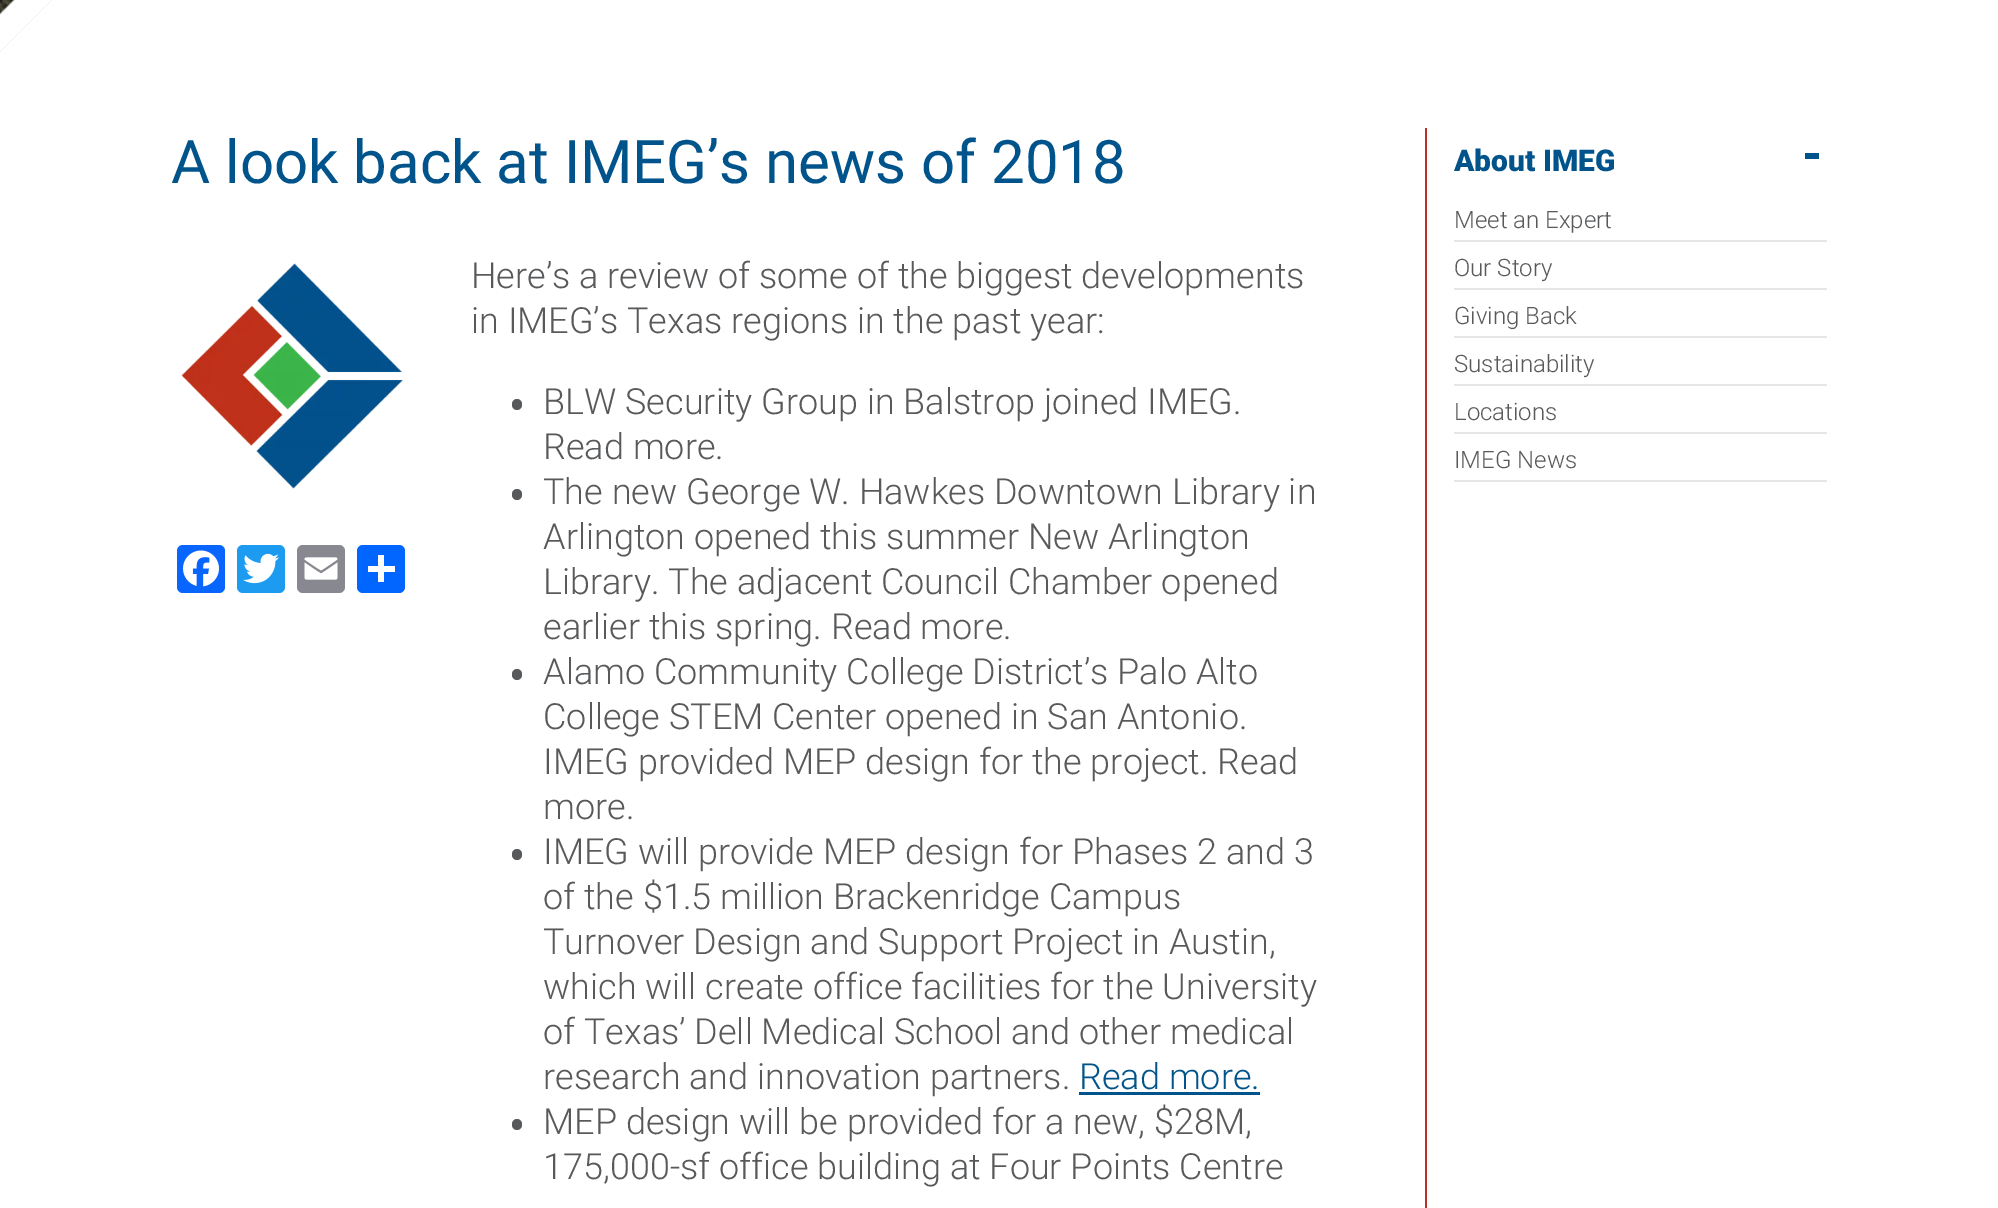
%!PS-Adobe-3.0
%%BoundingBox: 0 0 1998 1208
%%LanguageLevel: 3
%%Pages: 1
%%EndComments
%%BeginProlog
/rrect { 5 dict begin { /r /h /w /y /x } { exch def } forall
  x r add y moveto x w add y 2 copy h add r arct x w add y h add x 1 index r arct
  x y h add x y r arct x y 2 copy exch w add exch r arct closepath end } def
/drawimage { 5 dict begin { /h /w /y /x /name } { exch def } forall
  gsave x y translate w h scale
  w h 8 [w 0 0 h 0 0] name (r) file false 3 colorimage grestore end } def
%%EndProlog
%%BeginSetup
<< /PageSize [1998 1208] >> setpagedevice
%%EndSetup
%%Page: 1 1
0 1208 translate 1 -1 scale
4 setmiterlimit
1 setgray
0 0 1998 1208 rectfill
(images/2.raw) 0 0 52 52 drawimage
(images/1.raw) 0 0 52 52 drawimage
0.733 0.184 0.169 setrgbcolor
1425 128 2 1080 rectfill
(images/3.raw) 181 263 222 226 drawimage
0.031 0.4 1 setrgbcolor
177 545 48 48 6 rrect fill
(images/4.raw) 183 550 36 37 drawimage
0.114 0.608 0.941 setrgbcolor
237 545 48 48 6 rrect fill
(images/5.raw) 243 553 36 31 drawimage
0.533 0.537 0.565 setrgbcolor
297 545 48 48 6 rrect fill
(images/6.raw) 304 557 34 23 drawimage
0.004 0.4 1 setrgbcolor
357 545 48 48 6 rrect fill
1 setgray
378 555 6 27 rectfill
368 566 27 6 rectfill
0.345 0.349 0.357 setrgbcolor
512 399 10 11 5 rrect fill
512 489 10 11 5 rrect fill
512 669 10 11 5 rrect fill
512 849 10 11 5 rrect fill
0 0.329 0.545 setrgbcolor
1079 1092 181 3 rectfill
0.345 0.349 0.357 setrgbcolor
512 1119 10 11 5 rrect fill
0.902 setgray
1454 240 373 2 rectfill
1454 288 373 2 rectfill
1454 336 373 2 rectfill
1454 384 373 2 rectfill
1454 432 373 2 rectfill
1454 480 373 2 rectfill
/Roboto-Regular [60 0 0 -60 0 0] selectfont
0 0.329 0.545 setrgbcolor
171 183 moveto (A look back at IMEG’s news of 2018) show
/Roboto-Light [36 0 0 -36 0 0] selectfont
0.345 0.349 0.357 setrgbcolor
471 288 moveto (Here’s a review of some of the biggest developments) show
471 333 moveto (in IMEG’s Texas regions in the past year:) show
543 414 moveto (BLW Security Group in Balstrop joined IMEG.) show
543 459 moveto (Read more.) show
543 504 moveto (The new George W. Hawkes Downtown Library in) show
543 549 moveto (Arlington opened this summer New Arlington) show
543 594 moveto (Library. The adjacent Council Chamber opened) show
543 639 moveto (earlier this spring. Read more.) show
543 684 moveto (Alamo Community College District’s Palo Alto) show
543 729 moveto (College STEM Center opened in San Antonio.) show
543 774 moveto (IMEG provided MEP design for the project. Read) show
543 819 moveto (more.) show
543 864 moveto (IMEG will provide MEP design for Phases 2 and 3) show
543 909 moveto (of the $1.5 million Brackenridge Campus) show
543 954 moveto (Turnover Design and Support Project in Austin,) show
543 999 moveto (which will create office facilities for the University) show
543 1044 moveto (of Texas’ Dell Medical School and other medical) show
543 1089 moveto (research and innovation partners.) show
0 0.329 0.545 setrgbcolor
1079 1089 moveto (Read more.) show
0.345 0.349 0.357 setrgbcolor
543 1134 moveto (MEP design will be provided for a new, $28M,) show
543 1179 moveto (175,000-sf office building at Four Points Centre) show
/Roboto-Black [30 0 0 -30 0 0] selectfont
0 0.329 0.545 setrgbcolor
1454 171 moveto (About IMEG) show
/LiberationMono-Bold [50 0 0 -50 0 0] selectfont
gsave 1827 143 translate 180 rotate 0 0 moveto (-) show grestore
/Roboto-Light [24 0 0 -24 0 0] selectfont
0.345 0.349 0.357 setrgbcolor
1454 228 moveto (Meet an Expert) show
1454 276 moveto (Our Story) show
1454 324 moveto (Giving Back) show
1454 372 moveto (Sustainability) show
1454 420 moveto (Locations) show
1454 468 moveto (IMEG News) show
showpage
%%EOF
